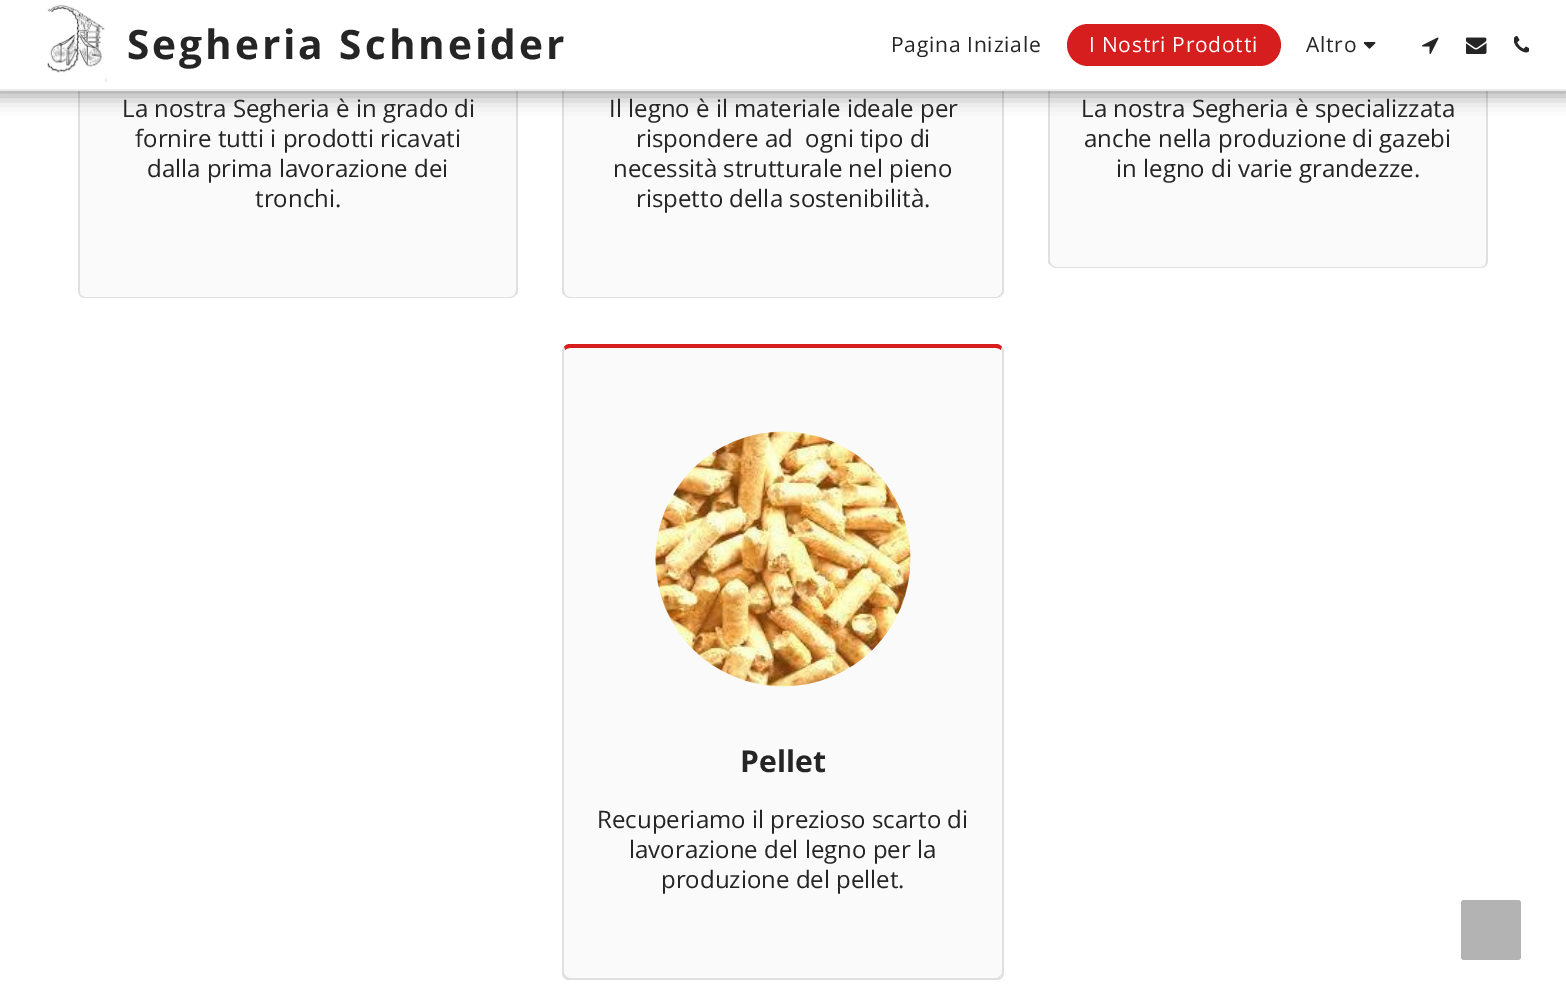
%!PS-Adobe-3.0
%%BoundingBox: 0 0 1566 1005
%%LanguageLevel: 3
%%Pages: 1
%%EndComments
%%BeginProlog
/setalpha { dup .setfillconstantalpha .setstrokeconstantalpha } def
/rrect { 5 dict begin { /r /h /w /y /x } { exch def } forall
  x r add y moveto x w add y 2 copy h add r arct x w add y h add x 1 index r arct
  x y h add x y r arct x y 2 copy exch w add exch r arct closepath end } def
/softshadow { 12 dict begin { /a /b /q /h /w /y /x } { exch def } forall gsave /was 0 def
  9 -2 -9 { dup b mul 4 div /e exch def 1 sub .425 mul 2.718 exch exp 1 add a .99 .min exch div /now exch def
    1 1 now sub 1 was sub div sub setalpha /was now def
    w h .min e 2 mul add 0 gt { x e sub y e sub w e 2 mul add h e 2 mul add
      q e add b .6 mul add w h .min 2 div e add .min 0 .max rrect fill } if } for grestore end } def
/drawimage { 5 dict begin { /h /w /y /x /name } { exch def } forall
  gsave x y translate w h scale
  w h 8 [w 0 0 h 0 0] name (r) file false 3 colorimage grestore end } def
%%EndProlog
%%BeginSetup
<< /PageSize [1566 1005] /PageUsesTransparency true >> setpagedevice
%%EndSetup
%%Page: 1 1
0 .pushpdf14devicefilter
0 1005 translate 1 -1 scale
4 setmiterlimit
1 setgray
0 0 1566 1005 rectfill
0.98 setgray
newpath 85 -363 moveto 510 -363 lineto 513 -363 516 -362 516 -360 curveto 516 291 lineto 516 294 513 297 510 297 curveto 85 297 lineto 82 297 80 294 80 291 curveto 80 -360 lineto 80 -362 82 -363 85 -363 curveto closepath fill
0.878 setgray
newpath 518 293 moveto 515 296 lineto 514 295 lineto 515 294 516 292 516 291 curveto 516 -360 lineto 515 -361 lineto 516 -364 lineto 518 -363 lineto closepath fill
newpath 515 296 moveto 514 297 512 298 510 298 curveto 85 298 lineto 83 298 81 297 80 296 curveto 81 295 lineto 82 296 84 297 85 297 curveto 510 297 lineto 512 297 513 296 514 295 curveto closepath fill
newpath 78 -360 moveto 78 291 lineto 78 293 79 295 80 296 curveto 81 295 lineto 80 294 80 292 80 291 curveto 80 -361 lineto 79 -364 lineto closepath fill
0.98 setgray
newpath 570 -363 moveto 996 -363 lineto 999 -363 1002 -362 1002 -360 curveto 1002 291 lineto 1002 294 999 297 996 297 curveto 570 297 lineto 567 297 564 294 564 291 curveto 564 -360 lineto 564 -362 567 -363 570 -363 curveto closepath fill
0.878 setgray
newpath 1004 293 moveto 1001 296 lineto 1000 295 lineto 1001 294 1002 292 1002 291 curveto 1002 -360 lineto 1001 -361 lineto 1002 -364 lineto 1004 -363 lineto closepath fill
newpath 1001 296 moveto 1000 297 998 298 996 298 curveto 570 298 lineto 568 298 566 297 565 296 curveto 566 295 lineto 567 296 568 297 570 297 curveto 996 297 lineto 998 297 999 296 1000 295 curveto closepath fill
newpath 562 -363 moveto 564 -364 lineto 565 -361 lineto 564 -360 lineto 564 291 lineto 564 292 565 294 566 295 curveto 565 296 lineto 562 293 lineto closepath fill
0.98 setgray
newpath 1056 -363 moveto 1481 -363 lineto 1484 -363 1486 -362 1486 -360 curveto 1486 261 lineto 1486 264 1484 267 1481 267 curveto 1056 267 lineto 1053 267 1050 264 1050 261 curveto 1050 -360 lineto 1050 -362 1053 -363 1056 -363 curveto closepath fill
0.878 setgray
newpath 1488 261 moveto 1488 -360 lineto 1487 -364 lineto 1486 -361 lineto 1486 261 lineto 1486 262 1486 264 1485 265 curveto 1486 266 lineto 1487 265 1488 263 1488 261 curveto closepath fill
newpath 1486 266 moveto 1485 267 1483 268 1481 268 curveto 1056 268 lineto 1054 268 1052 267 1051 266 curveto 1052 265 lineto 1053 266 1054 267 1056 267 curveto 1481 267 lineto 1482 267 1484 266 1485 265 curveto closepath fill
newpath 1048 -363 moveto 1050 -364 lineto 1051 -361 lineto 1050 -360 lineto 1050 261 lineto 1050 262 1051 264 1052 265 curveto 1051 266 lineto 1048 263 lineto closepath fill
0 setgray
-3 0 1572 96 0 9 0.35 softshadow
1 setgray
0 0 1566 89 rectfill
0.922 setgray
0 89 1566 2 rectfill
(images/1.raw) 47 4 60 78 drawimage
0.843 0.118 0.118 setrgbcolor
1067 24 214 42 21 rrect fill
(images/2.raw) 1364 42 12 7 drawimage
(images/3.raw) 1422 37 17 17 drawimage
(images/4.raw) 1466 37 21 17 drawimage
(images/5.raw) 1514 36 15 17 drawimage
0.98 setgray
newpath 570 348 moveto 996 348 lineto 999 348 1002 349 1002 351 curveto 1002 972 lineto 1002 975 999 978 996 978 curveto 570 978 lineto 567 978 564 975 564 972 curveto 564 351 lineto 564 349 567 348 570 348 curveto closepath fill
0.843 0.118 0.118 setrgbcolor
newpath 570 344 moveto 568 344 565 345 564 347 curveto 565 350 lineto 566 349 568 348 570 348 curveto 996 348 lineto 998 348 1000 349 1001 350 curveto 1002 347 lineto 1001 345 998 344 996 344 curveto closepath fill
0.878 setgray
newpath 1004 975 moveto 1002 978 lineto 1000 976 lineto 1001 975 1002 974 1002 972 curveto 1002 351 lineto 1001 350 lineto 1002 347 lineto 1004 349 lineto closepath fill
newpath 567 980 moveto 564 978 lineto 566 976 lineto 567 977 568 978 570 978 curveto 996 978 lineto 998 978 999 977 1000 976 curveto 1002 978 lineto 999 980 lineto closepath fill
newpath 562 349 moveto 564 347 lineto 565 350 lineto 564 351 lineto 564 972 lineto 564 974 565 975 566 976 curveto 564 978 lineto 562 975 lineto closepath fill
(images/6.raw) 655 431 256 256 drawimage
0.702 setgray
1461 900 60 60 3 rrect fill
/OpenSans-Bold [40.5 0 0 -40.5 0 0] selectfont
0.145 setgray
127 59 moveto 3 0 (Segheria Schneider) ashow
/OpenSans-Regular [21 0 0 -21 0 0] selectfont
891 52 moveto 0.75 0 (Pagina Iniziale) ashow
1 setgray
1089 52 moveto 0.75 0 (I Nostri Prodotti) ashow
0.145 setgray
1306 52 moveto 0.75 0 (Altro) ashow
/OpenSans-Regular [24 0 0 -24 0 0] selectfont
122 117 moveto (La nostra Segheria è in grado di) show
135 147 moveto (fornire tutti i prodotti ricavati) show
147 177 moveto (dalla prima lavorazione dei) show
255 207 moveto (tronchi.) show
609 117 moveto (Il legno è il materiale ideale per) show
636 147 moveto (rispondere ad  ogni tipo di) show
613 177 moveto (necessità strutturale nel pieno) show
636 207 moveto (rispetto della sostenibilità.) show
1081 117 moveto (La nostra Segheria è specializzata) show
1084 147 moveto (anche nella produzione di gazebi) show
1116 177 moveto (in legno di varie grandezze.) show
/OpenSans-Bold [30 0 0 -30 0 0] selectfont
740 772 moveto (Pellet) show
/OpenSans-Regular [24 0 0 -24 0 0] selectfont
597 828 moveto (Recuperiamo il prezioso scarto di) show
629 858 moveto (lavorazione del legno per la) show
661 888 moveto (produzione del pellet.) show
.poppdf14devicefilter showpage
%%EOF
